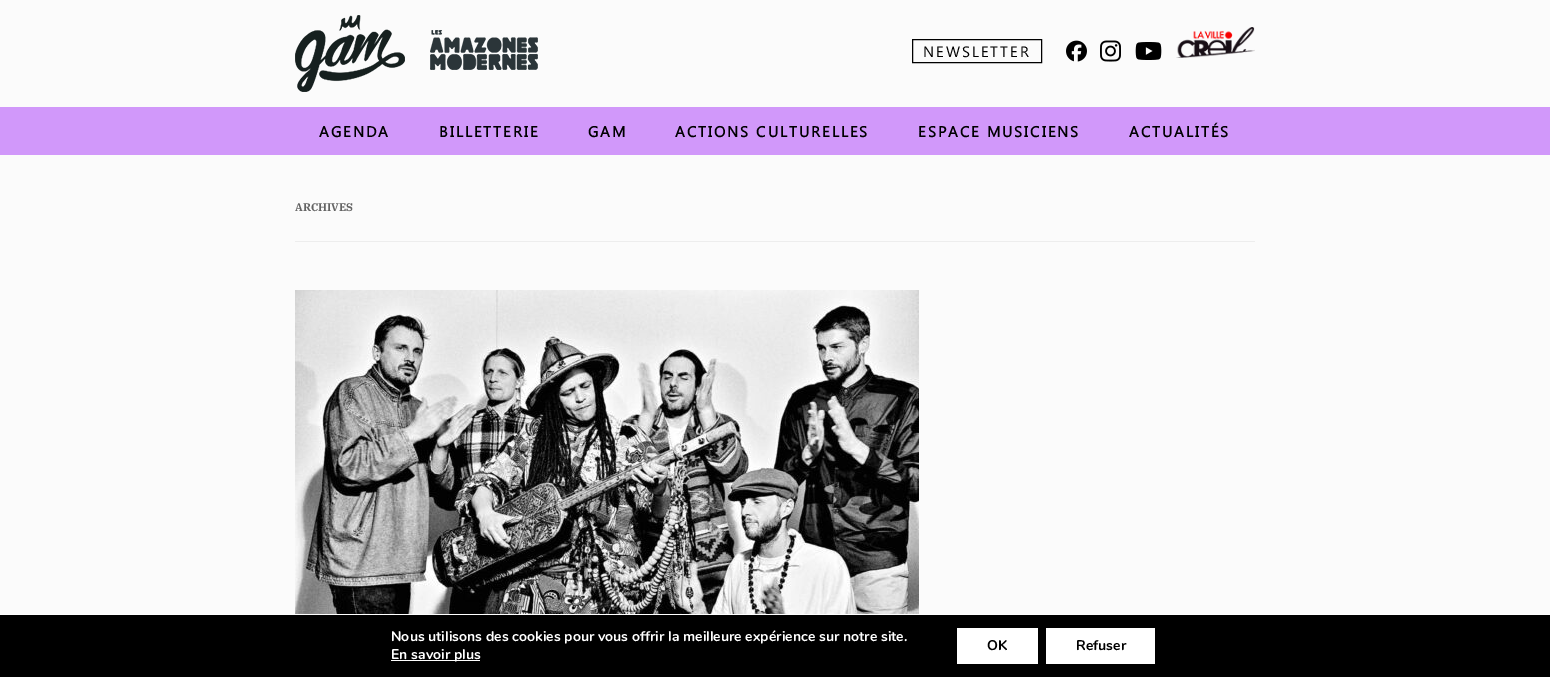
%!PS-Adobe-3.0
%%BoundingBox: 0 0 1550 677
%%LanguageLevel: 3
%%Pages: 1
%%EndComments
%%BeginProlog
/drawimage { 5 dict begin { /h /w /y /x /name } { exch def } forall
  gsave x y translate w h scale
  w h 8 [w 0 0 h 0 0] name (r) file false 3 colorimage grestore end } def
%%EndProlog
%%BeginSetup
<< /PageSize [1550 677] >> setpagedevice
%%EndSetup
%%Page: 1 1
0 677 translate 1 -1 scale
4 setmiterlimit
0.984 setgray
0 0 1550 677 rectfill
(images/1.raw) 295 15 110 77 drawimage
(images/2.raw) 430 30 108 40 drawimage
0 setgray
912.5 39.5 129 23 rectstroke
(images/3.raw) 1066 40 21 22 drawimage
(images/4.raw) 1100 40 21 22 drawimage
(images/5.raw) 1135 42 27 18 drawimage
(images/6.raw) 1176 27 79 31 drawimage
0.82 0.596 0.98 setrgbcolor
0 107 1550 48 rectfill
0.929 setgray
295 241 960 1 rectfill
(images/7.raw) 295 290 624 324 drawimage
0 setgray
0 615 1550 62 rectfill
1 setgray
0 614 1550 1 rectfill
391 660 89 1 rectfill
957 628 81 36 rectfill
1046 628 109 36 rectfill
/SegoeUI-Regular [15 0 0 -15 0 0] selectfont
0 setgray
923 57 moveto 2 0 (NEWSLETTER) ashow
/SegoeUI-Bold [15 0 0 -15 0 0] selectfont
319 137 moveto 2 0 (AGENDA) ashow
439 137 moveto 2 0 (BILLETTERIE) ashow
588 137 moveto 2 0 (GAM) ashow
675 137 moveto 2 0 (ACTIONS CULTURELLES) ashow
918 137 moveto 2 0 (ESPACE MUSICIENS) ashow
1129 137 moveto 2 0 (ACTUALITÉS) ashow
/IBMPlexSerif-Bold [11 0 0 -11 0 0] selectfont
0.388 setgray
295 211 moveto (ARCHIVES) show
/Nunito-Bold [14 0 0 -14 0 0] selectfont
1 setgray
391 641 moveto (Nous utilisons des cookies pour vous offrir la meilleure expérience sur notre site.) show
391 659 moveto (En savoir plus) show
0 setgray
987 650 moveto (OK) show
1076 650 moveto (Refuser) show
showpage
%%EOF
